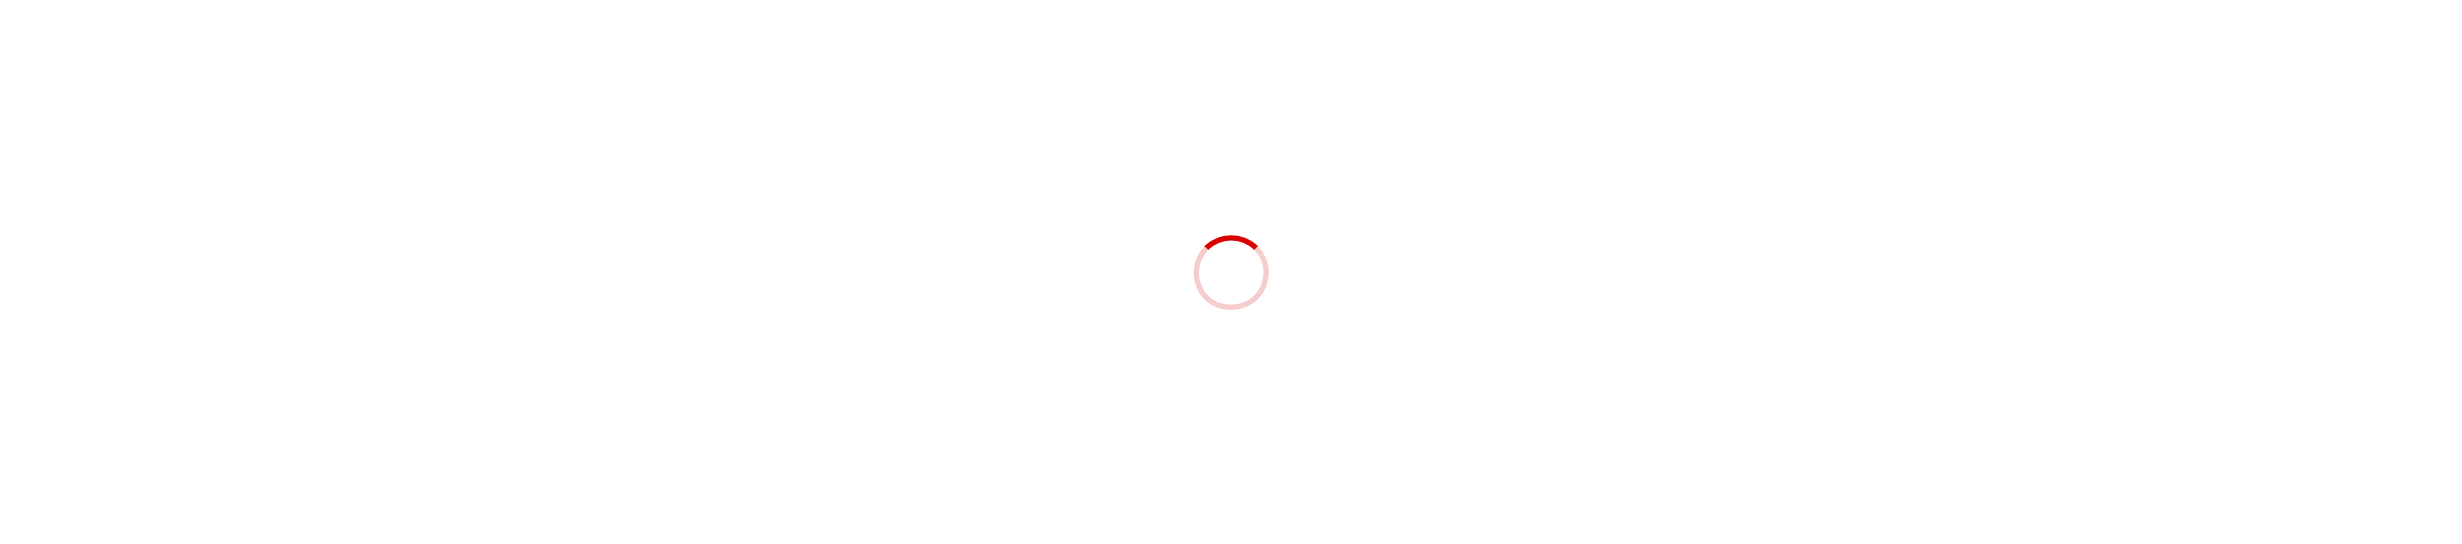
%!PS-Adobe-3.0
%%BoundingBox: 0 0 2462 544
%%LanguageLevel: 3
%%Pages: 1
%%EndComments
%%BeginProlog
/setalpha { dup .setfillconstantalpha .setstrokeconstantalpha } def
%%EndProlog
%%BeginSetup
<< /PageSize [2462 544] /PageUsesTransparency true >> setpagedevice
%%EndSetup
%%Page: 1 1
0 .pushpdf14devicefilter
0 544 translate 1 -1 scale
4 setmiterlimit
1 setgray
0 0 2462 544 rectfill
0.847 0.004 0 setrgbcolor
5 setlinewidth
newpath 1206.5 248 moveto 1220 234.5 1242.5 234.5 1256 248 curveto stroke
0.2 setalpha
newpath 1256 248 moveto 1262.5 254.5 1266.5 263.5 1266 272.5 curveto 1266 314.5 1205 320.5 1197 279.5 curveto 1194.5 268 1198.5 256 1206.5 248 curveto stroke
.poppdf14devicefilter showpage
%%EOF
